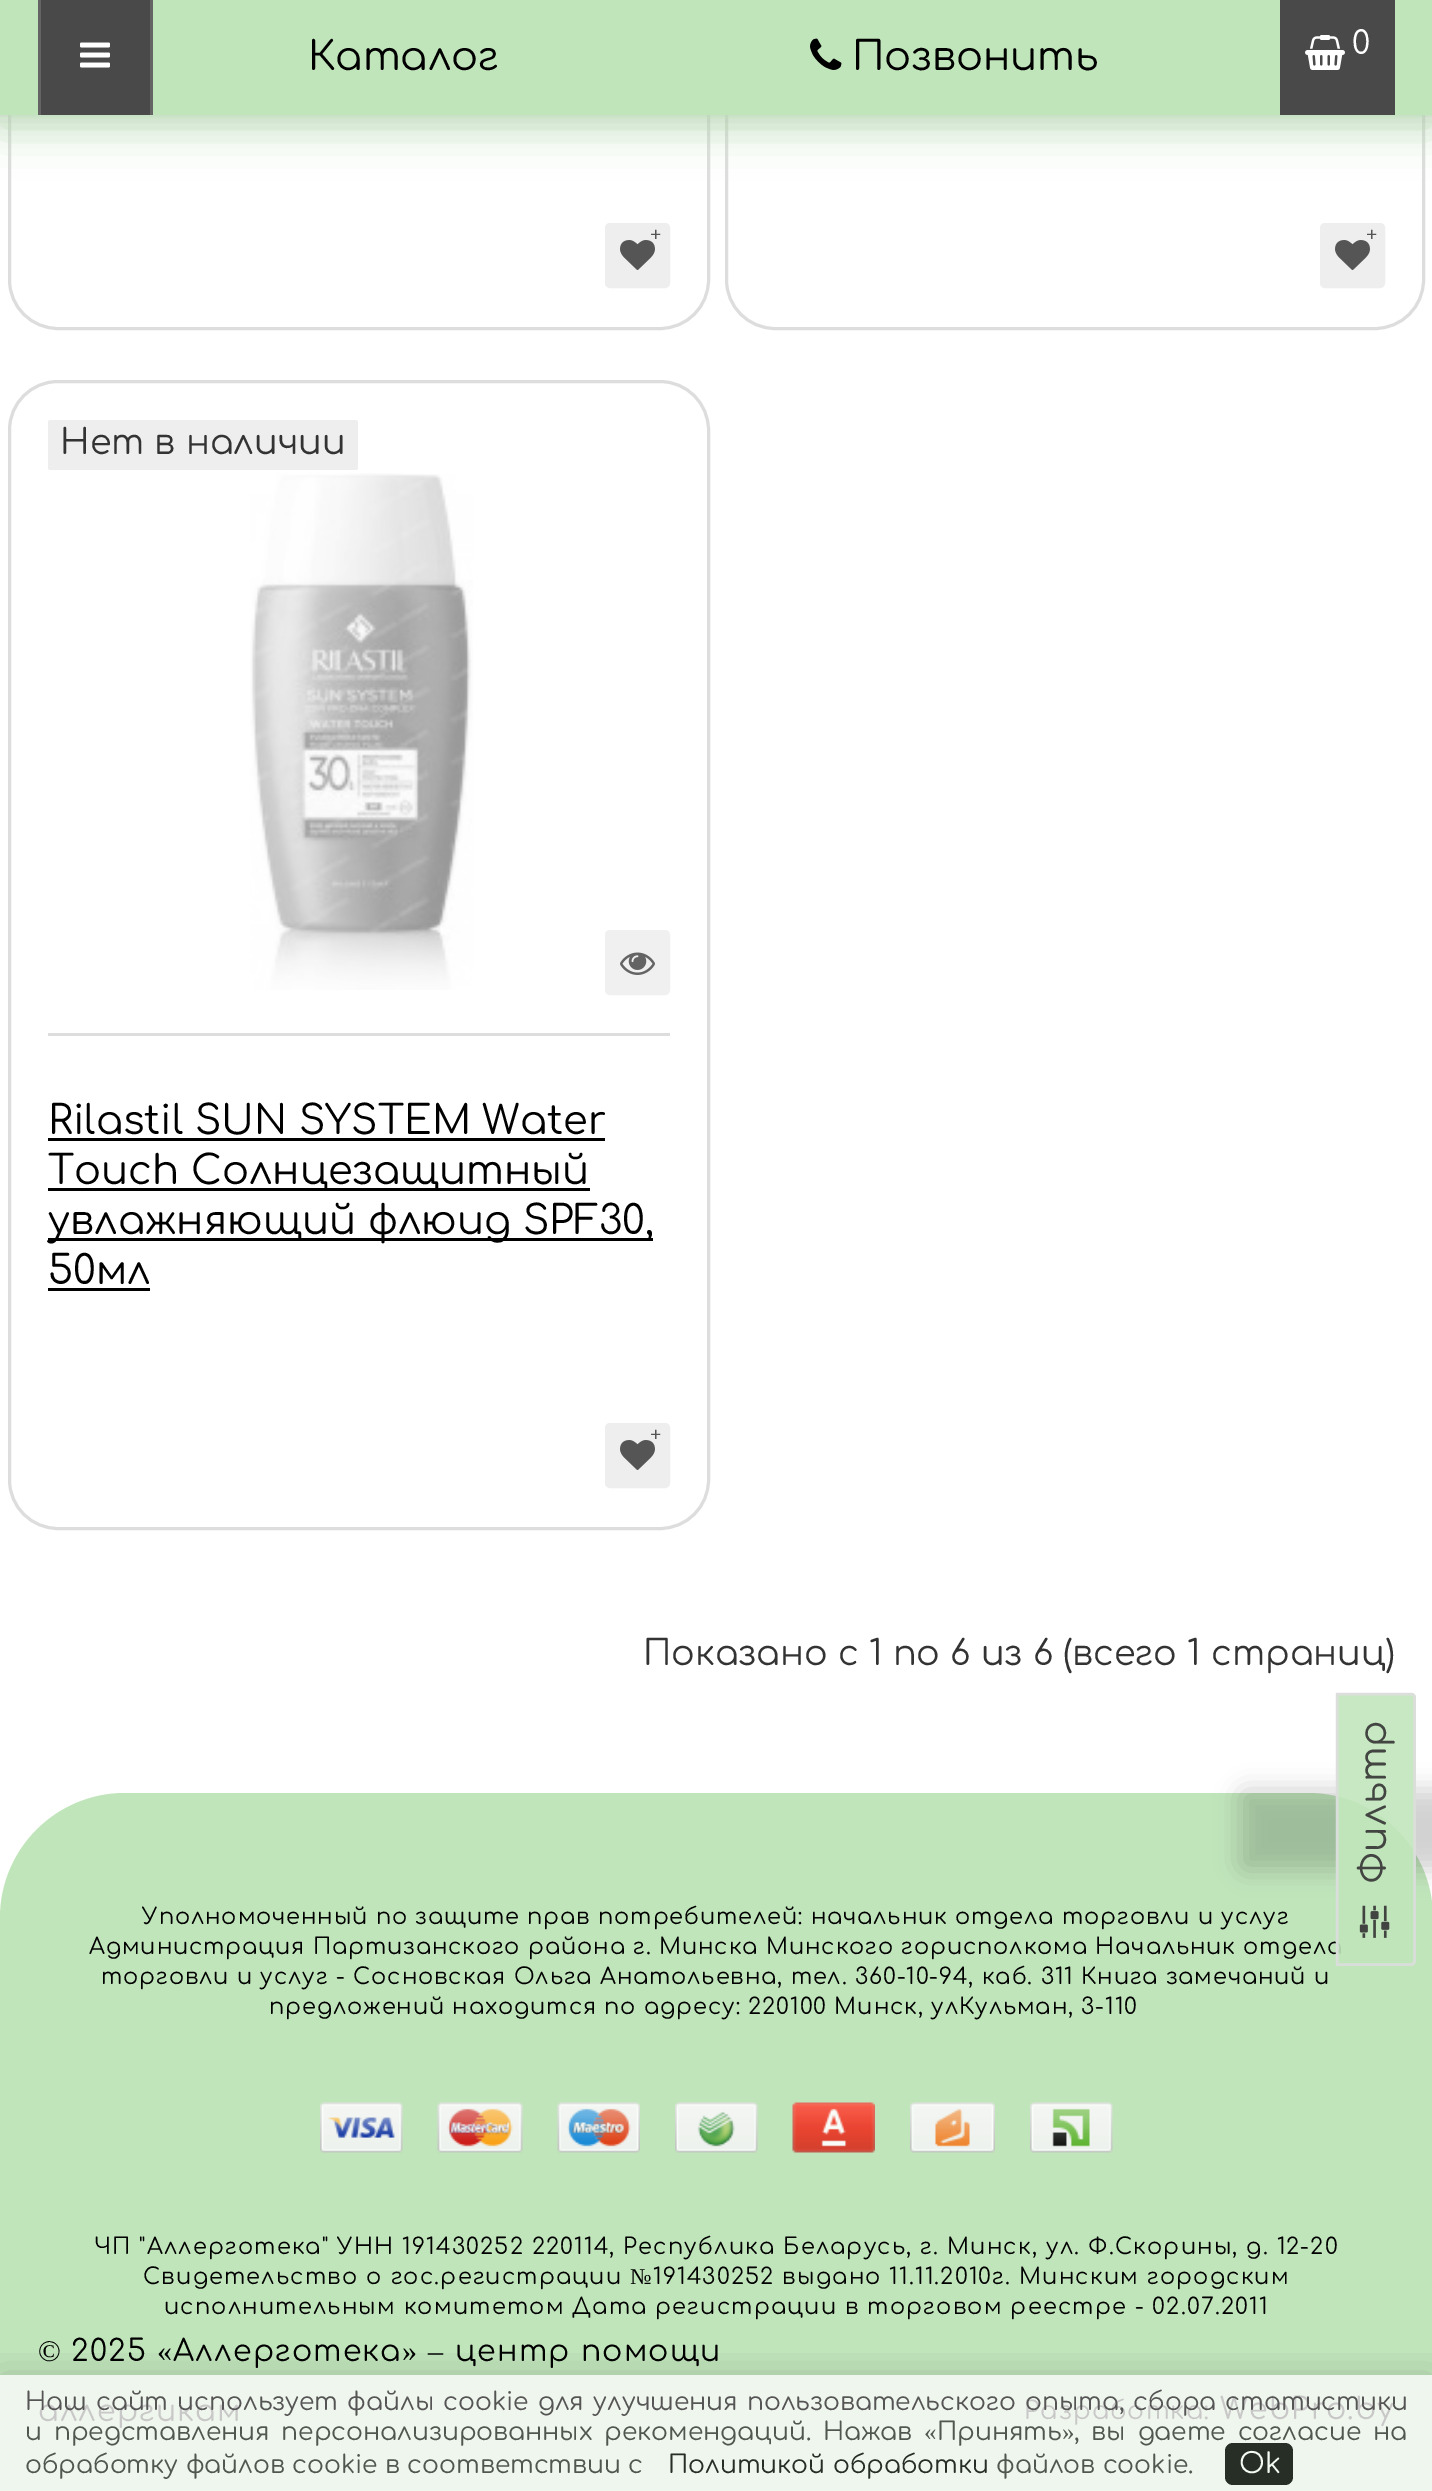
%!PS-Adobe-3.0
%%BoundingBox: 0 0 1432 2491
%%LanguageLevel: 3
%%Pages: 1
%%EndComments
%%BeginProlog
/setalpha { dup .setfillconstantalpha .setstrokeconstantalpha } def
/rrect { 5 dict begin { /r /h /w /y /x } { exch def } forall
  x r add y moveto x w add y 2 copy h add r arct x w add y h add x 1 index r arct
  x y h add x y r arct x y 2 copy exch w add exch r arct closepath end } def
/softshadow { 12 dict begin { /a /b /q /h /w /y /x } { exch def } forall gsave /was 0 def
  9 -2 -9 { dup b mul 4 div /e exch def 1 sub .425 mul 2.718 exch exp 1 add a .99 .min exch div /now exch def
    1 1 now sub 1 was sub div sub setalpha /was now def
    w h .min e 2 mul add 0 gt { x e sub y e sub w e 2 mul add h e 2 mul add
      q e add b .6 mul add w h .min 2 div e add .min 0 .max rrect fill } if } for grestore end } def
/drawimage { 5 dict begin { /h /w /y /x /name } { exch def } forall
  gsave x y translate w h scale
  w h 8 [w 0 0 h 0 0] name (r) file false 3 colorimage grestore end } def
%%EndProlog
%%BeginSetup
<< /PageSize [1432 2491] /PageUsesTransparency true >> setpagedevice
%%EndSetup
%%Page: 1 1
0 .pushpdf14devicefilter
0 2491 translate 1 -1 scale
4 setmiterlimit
1 setgray
0 0 1432 2491 rectfill
0.867 setgray
3 setlinewidth
9.5 -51.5 699 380 48.5 rrect stroke
726.5 -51.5 697 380 48.5 rrect stroke
0 setgray
-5 -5 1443 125 0 12.5 0.2 softshadow
0.757 0.898 0.733 setrgbcolor
0 10 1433 115 0 25 0.96 softshadow
0 0 1432 115 rectfill
0.286 setgray
41 0 109 115 rectfill
0.392 setgray
150 0 3 115 rectfill
38 0 3 115 rectfill
(images/1.raw) 80 42 30 26 drawimage
(images/2.raw) 810 38 32 32 drawimage
0.286 setgray
1280 0 115 115 rectfill
(images/3.raw) 1305 35 40 35 drawimage
0.933 setgray
607.5 225.5 60 60 2.5 rrect gsave fill grestore
5 setlinewidth
stroke
(images/4.raw) 620 240 35 30 drawimage
1322.5 225.5 60 60 2.5 rrect gsave fill grestore
stroke
(images/4.raw) 1335 240 35 30 drawimage
0.867 setgray
3 setlinewidth
9.5 381.5 699 1147 48.5 rrect stroke
(images/5.raw) 250 473 223 517 drawimage
0.4 setalpha
1 setgray
5 setlinewidth
45.5 417.5 315 55 5.5 rrect stroke
1 setalpha
0.933 setgray
48 420 310 50 2.5 rrect fill
0.941 setgray
607.5 932.5 60 60 2.5 rrect gsave fill grestore
stroke
(images/6.raw) 620 952 35 23 drawimage
0.867 setgray
48 1033 622 3 rectfill
0 setgray
48 1138 557 3 rectfill
48 1188 542 3 rectfill
48 1238 605 3 rectfill
48 1288 102 3 rectfill
0.933 setgray
607.5 1425.5 60 60 2.5 rrect gsave fill grestore
stroke
(images/4.raw) 620 1440 35 30 drawimage
0.757 0.898 0.733 setrgbcolor
newpath 125 1793 moveto 1308 1793 lineto 1377 1793 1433 1849 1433 1918 curveto 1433 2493 lineto 0 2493 lineto 0 1918 lineto 0 1849 56 1793 125 1793 curveto closepath fill
gsave
newpath 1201 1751 moveto 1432 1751 lineto 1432 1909 lineto 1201 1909 lineto closepath 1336 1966 moveto 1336 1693 lineto 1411 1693 lineto 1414 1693 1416 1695 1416 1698 curveto 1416 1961 lineto 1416 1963.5 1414 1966 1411 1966 curveto closepath eoclip newpath
0 setgray
1240 1790 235 80 5 12.5 0.18 softshadow
grestore
0.937 0.965 0.929 setrgbcolor
0 2375 1432 116 rectfill
(images/8.raw) 320 2102 83 51 drawimage
(images/9.raw) 437 2102 86 51 drawimage
(images/10.raw) 557 2102 83 51 drawimage
(images/11.raw) 675 2102 83 51 drawimage
(images/12.raw) 792 2102 83 51 drawimage
(images/13.raw) 910 2102 85 51 drawimage
(images/14.raw) 1030 2102 83 51 drawimage
gsave
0 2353 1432 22 rectclip
0 setgray
0 2375 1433 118 0 19 0.16 softshadow
grestore
/Comfortaa-Regular [40 0 0 -40 0 0] selectfont
0 setgray
308 70 moveto (Каталог) show
852 70 moveto (Позвонить) show
/Comfortaa-Regular [32 0 0 -32 0 0] selectfont
1 setgray
1352 54 moveto (0) show
/LiberationSerif-Bold [20 0 0 -20 0 0] selectfont
0.333 setgray
650 241 moveto (+) show
1366 241 moveto (+) show
/Comfortaa-Regular [35 0 0 -35 0 0] selectfont
0.2 setgray
60 454 moveto (Нет в наличии) show
/Comfortaa-Regular [40 0 0 -40 0 0] selectfont
0 setgray
48 1134 moveto (Rilastil SUN SYSTEM Water) show
48 1184 moveto (Touch Солнцезащитный) show
48 1234 moveto (увлажняющий флюид SPF30,) show
48 1284 moveto (50мл) show
/LiberationSerif-Bold [20 0 0 -20 0 0] selectfont
0.333 setgray
650 1441 moveto (+) show
/Comfortaa-Regular [35 0 0 -35 0 0] selectfont
0.2 setgray
643 1665 moveto (Показано с 1 по 6 из 6 \(всего 1 страниц\)) show
/Comfortaa-Regular [22.5 0 0 -22.5 0 0] selectfont
0 setgray
142 1924 moveto 0.9 0 (Уполномоченный по защите прав потребителей: начальник отдела торговли и услуг) ashow
89 1954 moveto 0.9 0 (Администрация Партизанского района г. Минска Минского горисполкома Начальник отдела) ashow
0.9 setalpha
0.757 0.898 0.733 setrgbcolor
newpath 1336 1966 moveto 1336 1693 lineto 1411 1693 lineto 1414 1693 1416 1695 1416 1698 curveto 1416 1961 lineto 1416 1964 1414 1966 1411 1966 curveto closepath fill
0.867 setgray
2.5 setlinewidth
newpath 1337 1964.5 moveto 1337 1694 lineto 1411 1694 lineto 1413 1694 1414.5 1696 1414.5 1698 curveto 1414.5 1961 lineto 1414.5 1963 1413 1964.5 1411 1964.5 curveto closepath stroke
/Comfortaa-Regular [37.5 0 0 -37.5 0 0] selectfont
1 setalpha
0.259 0.271 0.255 setrgbcolor
gsave 1386 1884 translate -90 rotate 0 0 moveto (Фильтр) show grestore
(images/7.raw) 1359 1905 31 33 drawimage
/Comfortaa-Regular [22.5 0 0 -22.5 0 0] selectfont
0 setgray
101 1984 moveto 0.9 0 (торговли и услуг - Сосновская Ольга Анатольевна, тел. 360-10-94, каб. 311 Книга замечаний и) ashow
269 2014 moveto 0.9 0 (предложений находится по адресу: 220100 Минск, улКульман, 3-110) ashow
94 2254 moveto 1.2 0 (ЧП "Аллерготека" УНН 191430252 220114, Республика Беларусь, г. Минск, ул. Ф.Скорины, д. 12-20) ashow
143 2284 moveto 1.2 0 (Свидетельство о гос.регистрации) ashow
/LiberationSerif-Regular [22.5 0 0 -22.5 0 0] selectfont
630 2284 moveto 1.2 0 (№) ashow
/Comfortaa-Regular [22.5 0 0 -22.5 0 0] selectfont
653 2284 moveto 1.2 0 (191430252 выдано 11.11.2010г. Минским городским) ashow
164 2314 moveto 1.2 0 (исполнительным комитетом Дата регистрации в торговом реестре - 02.07.2011) ashow
/LiberationSerif-Regular [30 0 0 -30 0 0] selectfont
38 2361 moveto 1.2 0 (©) ashow
/Comfortaa-Regular [30 0 0 -30 0 0] selectfont
71 2361 moveto 1.2 0 (2025) ashow
/LiberationSerif-Regular [30 0 0 -30 0 0] selectfont
157 2361 moveto 1.2 0 («) ashow
/Comfortaa-Regular [30 0 0 -30 0 0] selectfont
173 2361 moveto 1.2 0 (Аллерготека) ashow
/LiberationSerif-Regular [30 0 0 -30 0 0] selectfont
402 2361 moveto 1.2 0 (») ashow
428 2361 moveto 1.2 0 (–) ashow
/Comfortaa-Regular [30 0 0 -30 0 0] selectfont
455 2361 moveto 1.2 0 (центр помощи) ashow
0.784 setgray
38 2421 moveto 1.2 0 (аллергикам) ashow
/Comfortaa-Regular [25 0 0 -25 0 0] selectfont
1024 2419 moveto 1.2 0 (Разработка:) ashow
/Comfortaa-Regular [30 0 0 -30 0 0] selectfont
1220 2419 moveto 1.2 0 (WebPro.by) ashow
/Comfortaa-Regular [25 0 0 -25 0 0] selectfont
0.333 setgray
25 2410 moveto 1.75 0 32 (Наш сайт использует файлы cookie для улучшения пользовательского опыта, сбора статистики) widthshow
0.31 0.341 0.306 setrgbcolor
25 2440 moveto 4.5 0 32 (и представления персонализированных рекомендаций. Нажав) widthshow
/LiberationSerif-Regular [25 0 0 -25 0 0] selectfont
924 2440 moveto («) show
/Comfortaa-Regular [25 0 0 -25 0 0] selectfont
937 2440 moveto (Принять) show
/LiberationSerif-Regular [25 0 0 -25 0 0] selectfont
1062 2440 moveto (») show
/Comfortaa-Regular [25 0 0 -25 0 0] selectfont
1074 2440 moveto 4.5 0 32 (, вы даете согласие на) widthshow
25 2473 moveto (обработку файлов cookie в соответствии с) show
0.153 0.18 0.145 setrgbcolor
668 2473 moveto (Политикой обработки) show
0.31 0.341 0.306 setrgbcolor
996 2473 moveto (файлов cookie.) show
0.153 0.18 0.145 setrgbcolor
1225 2443 68 42 8 rrect fill
/Comfortaa-Regular [28 0 0 -28 0 0] selectfont
0.953 0.98 0.945 setrgbcolor
1239 2473 moveto (Ok) show
.poppdf14devicefilter showpage
%%EOF
